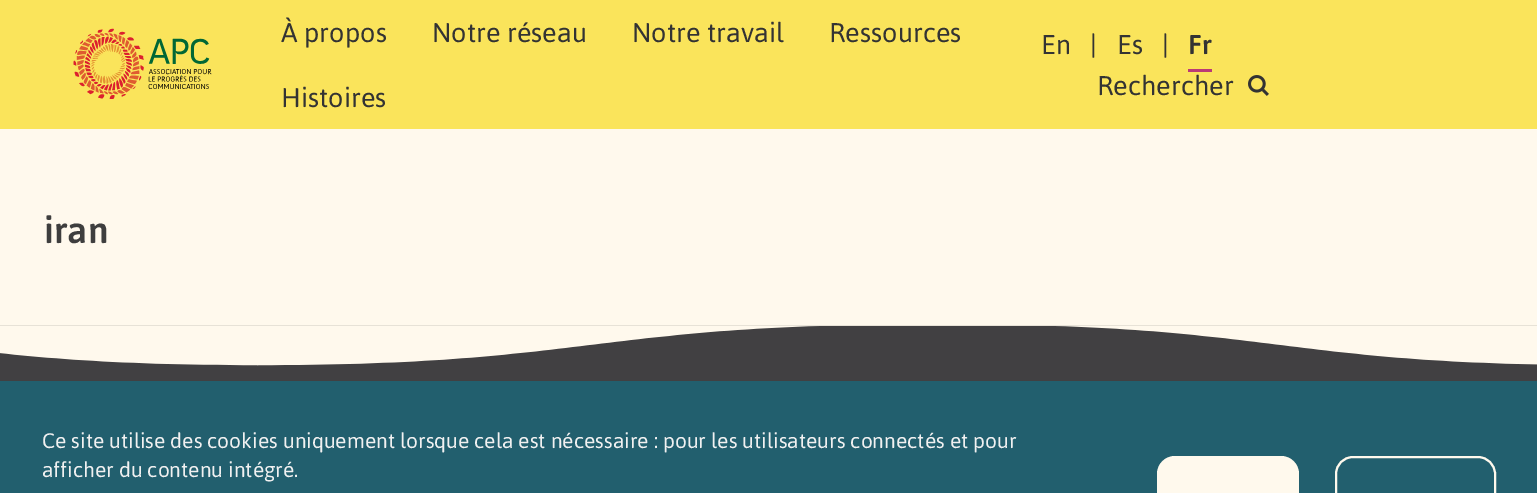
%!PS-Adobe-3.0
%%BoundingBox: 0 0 1537 493
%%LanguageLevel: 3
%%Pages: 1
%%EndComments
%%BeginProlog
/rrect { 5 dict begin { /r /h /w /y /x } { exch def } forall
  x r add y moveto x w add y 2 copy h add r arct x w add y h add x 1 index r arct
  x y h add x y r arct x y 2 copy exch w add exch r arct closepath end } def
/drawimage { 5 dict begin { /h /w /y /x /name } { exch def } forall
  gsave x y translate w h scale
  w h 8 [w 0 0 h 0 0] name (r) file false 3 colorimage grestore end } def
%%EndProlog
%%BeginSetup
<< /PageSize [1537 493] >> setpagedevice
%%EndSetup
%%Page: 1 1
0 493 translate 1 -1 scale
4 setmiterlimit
1 0.976 0.929 setrgbcolor
0 0 1537 493 rectfill
0.98 0.894 0.357 setrgbcolor
0 0 1537 129 rectfill
(images/1.raw) 73 28 139 71 drawimage
0.733 0.227 0.463 setrgbcolor
1188 69 24 3 rectfill
(images/2.raw) 1248 75 21 21 drawimage
(images/3.raw) 0 325 1537 56 drawimage
0.133 0.373 0.431 setrgbcolor
0 381 1537 112 rectfill
1 0.976 0.929 setrgbcolor
1157 456 142 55 18 rrect fill
2 setlinewidth
1336 457 159 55 17 rrect stroke
/Asap-Regular [27 0 0 -27 0 0] selectfont
0.2 setgray
281 42 moveto (À propos) show
432 42 moveto (Notre réseau) show
632 42 moveto (Notre travail) show
829 42 moveto (Ressources) show
281 107 moveto (Histoires) show
1041 54 moveto (En) show
1090 54 moveto (|) show
1117 54 moveto (Es) show
1162 54 moveto (|) show
/Asap-Medium [27 0 0 -27 0 0] selectfont
1188 54 moveto (Fr) show
/Asap-Regular [27 0 0 -27 0 0] selectfont
1097 95 moveto (Rechercher) show
/Asap-Medium [37 0 0 -37 0 0] selectfont
0.243 setgray
44 243 moveto (iran) show
/Asap-Regular [21 0 0 -21 0 0] selectfont
0.945 setgray
42 448 moveto (Ce site utilise des cookies uniquement lorsque cela est nécessaire : pour les utilisateurs connectés et pour) show
42 477 moveto (afficher du contenu intégré.) show
showpage
%%EOF
